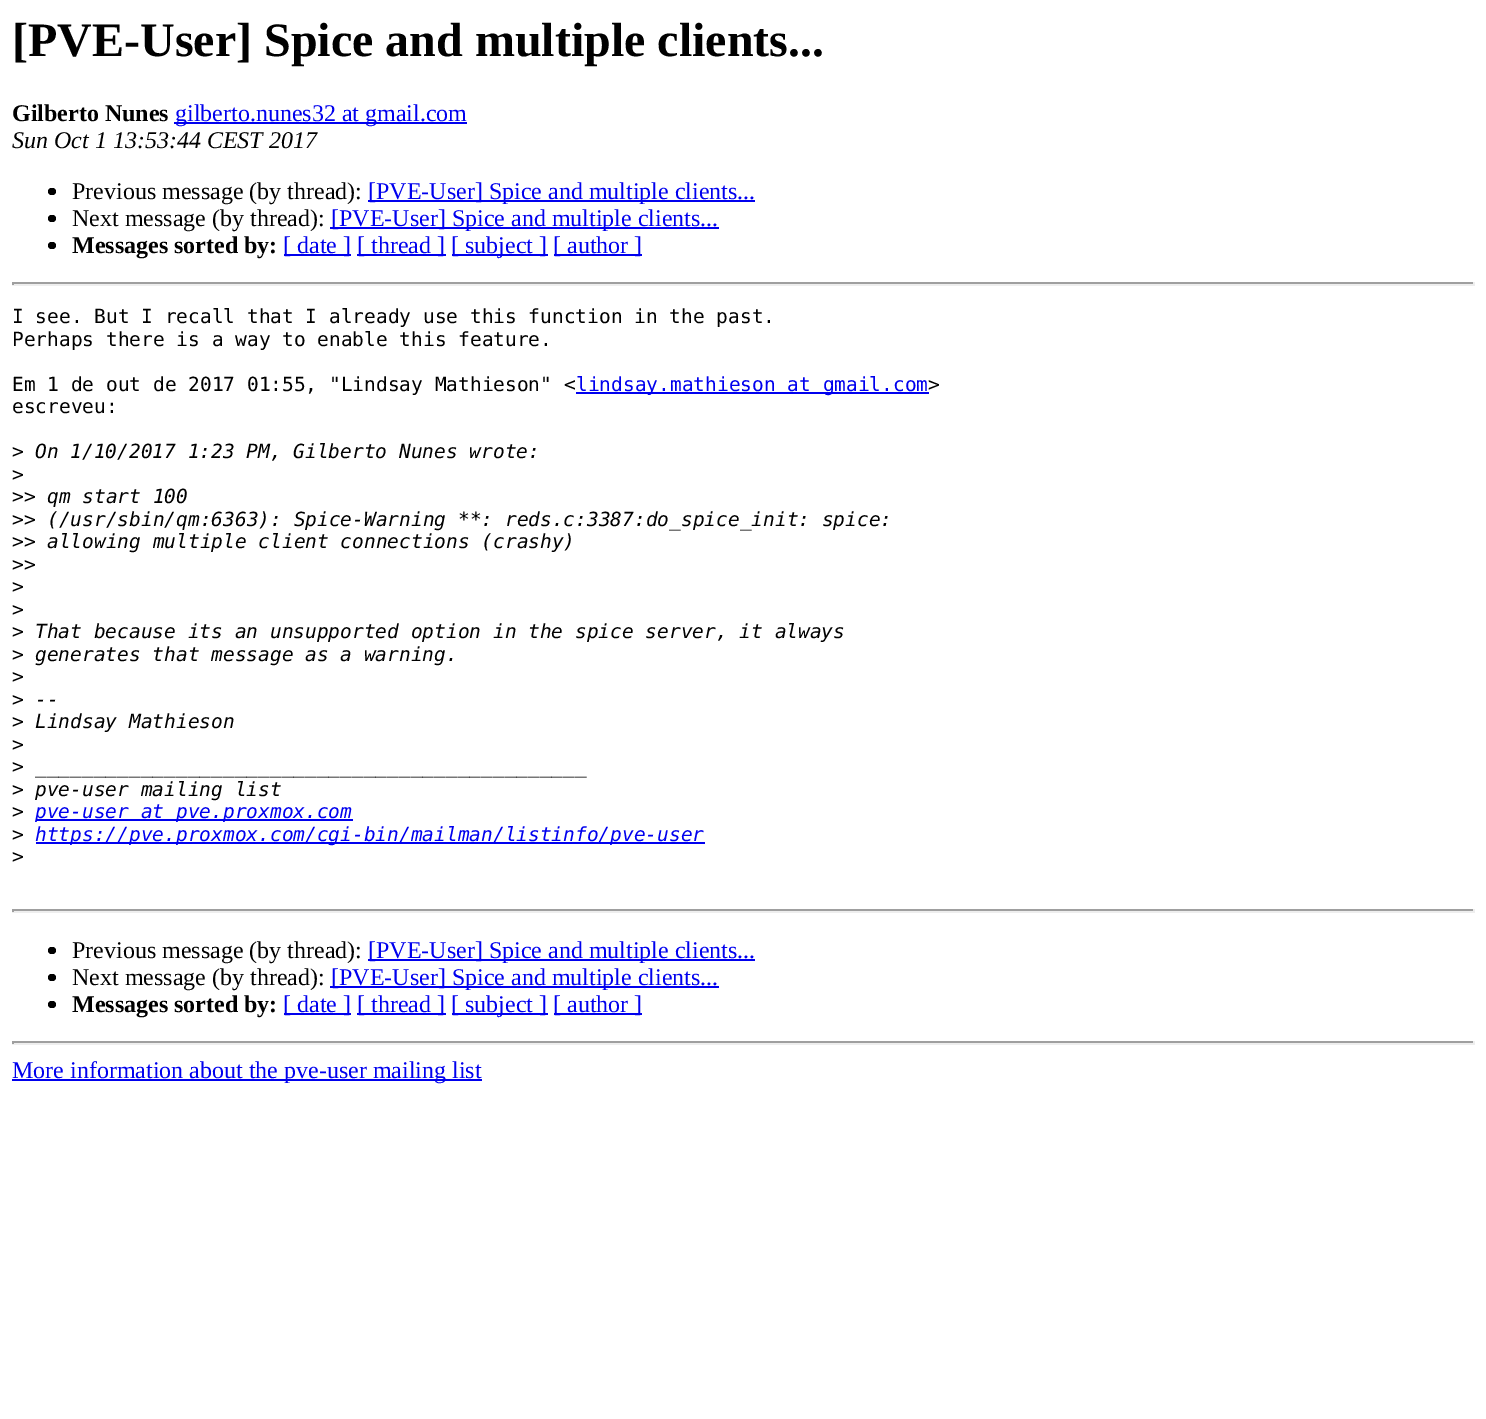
%!PS-Adobe-3.0
%%BoundingBox: 0 0 1486 1419
%%LanguageLevel: 3
%%Pages: 1
%%EndComments
%%BeginProlog
/rrect { 5 dict begin { /r /h /w /y /x } { exch def } forall
  x r add y moveto x w add y 2 copy h add r arct x w add y h add x 1 index r arct
  x y h add x y r arct x y 2 copy exch w add exch r arct closepath end } def
%%EndProlog
%%BeginSetup
<< /PageSize [1486 1419] >> setpagedevice
%%EndSetup
%%Page: 1 1
0 1419 translate 1 -1 scale
4 setmiterlimit
1 setgray
0 0 1486 1419 rectfill
0 0 0.933 setrgbcolor
174 122 293 2 rectfill
0 setgray
48 188 8 7 3.5 rrect fill
0 0 0.933 setrgbcolor
368 200 387 2 rectfill
0 setgray
48 215 8 7 3.5 rrect fill
0 0 0.933 setrgbcolor
330 227 389 2 rectfill
0 setgray
48 242 8 7 3.5 rrect fill
0 0 0.933 setrgbcolor
284 254 67 2 rectfill
357 254 89 2 rectfill
452 254 96 2 rectfill
554 254 88 2 rectfill
0.624 setgray
12 282 1463 2 rectfill
0.933 setgray
1473 282 2 3 rectfill
12 284 1463 2 rectfill
0.624 setgray
12 282 2 3 rectfill
0 0 0.933 setrgbcolor
576 392 353 2 rectfill
36 819 317 2 rectfill
36 842 669 2 rectfill
0.624 setgray
12 909 1463 2 rectfill
0.933 setgray
1473 909 2 3 rectfill
12 911 1463 2 rectfill
0.624 setgray
12 909 2 3 rectfill
0 setgray
48 947 8 7 3.5 rrect fill
0 0 0.933 setrgbcolor
368 959 387 2 rectfill
0 setgray
48 974 8 7 3.5 rrect fill
0 0 0.933 setrgbcolor
330 986 389 2 rectfill
0 setgray
48 1001 8 7 3.5 rrect fill
0 0 0.933 setrgbcolor
284 1013 67 2 rectfill
357 1013 89 2 rectfill
452 1013 96 2 rectfill
554 1013 88 2 rectfill
0.624 setgray
12 1041 1463 2 rectfill
0.933 setgray
1473 1041 2 3 rectfill
12 1043 1463 2 rectfill
0.624 setgray
12 1041 2 3 rectfill
0 0 0.933 setrgbcolor
12 1079 470 2 rectfill
/LiberationSerif-Bold [48 0 0 -48 0 0] selectfont
0 setgray
12 56 moveto ([PVE-User] Spice and multiple clients...) show
/LiberationSerif-Bold [24 0 0 -24 0 0] selectfont
12 121 moveto (Gilberto Nunes) show
/LiberationSerif-Regular [24 0 0 -24 0 0] selectfont
0 0 0.933 setrgbcolor
175 121 moveto (gilberto.nunes32 at gmail.com) show
/LiberationSerif-Italic [24 0 0 -24 0 0] selectfont
0 setgray
12 148 moveto (Sun Oct 1 13:53:44 CEST 2017) show
/LiberationSerif-Regular [24 0 0 -24 0 0] selectfont
72 199 moveto (Previous message \(by thread\):) show
0 0 0.933 setrgbcolor
368 199 moveto ([PVE-User] Spice and multiple clients...) show
0 setgray
72 226 moveto (Next message \(by thread\):) show
0 0 0.933 setrgbcolor
331 226 moveto ([PVE-User] Spice and multiple clients...) show
/LiberationSerif-Bold [24 0 0 -24 0 0] selectfont
0 setgray
72 253 moveto (Messages sorted by:) show
/LiberationSerif-Regular [24 0 0 -24 0 0] selectfont
0 0 0.933 setrgbcolor
283 253 moveto ([ date ]) show
357 253 moveto ([ thread ]) show
451 253 moveto ([ subject ]) show
553 253 moveto ([ author ]) show
/DejaVuSansMono-Regular [19.5 0 0 -19.5 0 0] selectfont
0 setgray
12 323 moveto (I see. But I recall that I already use this function in the past.) show
12 346 moveto (Perhaps there is a way to enable this feature.) show
12 391 moveto (Em 1 de out de 2017 01:55, "Lindsay Mathieson" <) show
0 0 0.933 setrgbcolor
576 391 moveto (lindsay.mathieson at gmail.com) show
0 setgray
928 391 moveto (>) show
12 413 moveto (escreveu:) show
12 458 moveto (>) show
/DejaVuSansMono-Italic [19.5 0 0 -19.5 0 0] selectfont
35 458 moveto (On 1/10/2017 1:23 PM, Gilberto Nunes wrote:) show
/DejaVuSansMono-Regular [19.5 0 0 -19.5 0 0] selectfont
12 481 moveto (>) show
12 503 moveto (>>) show
/DejaVuSansMono-Italic [19.5 0 0 -19.5 0 0] selectfont
47 503 moveto (qm start 100) show
/DejaVuSansMono-Regular [19.5 0 0 -19.5 0 0] selectfont
12 526 moveto (>>) show
/DejaVuSansMono-Italic [19.5 0 0 -19.5 0 0] selectfont
47 526 moveto (\(/usr/sbin/qm:6363\): Spice-Warning **: reds.c:3387:do_spice_init: spice:) show
/DejaVuSansMono-Regular [19.5 0 0 -19.5 0 0] selectfont
12 548 moveto (>>) show
/DejaVuSansMono-Italic [19.5 0 0 -19.5 0 0] selectfont
47 548 moveto (allowing multiple client connections \(crashy\)) show
/DejaVuSansMono-Regular [19.5 0 0 -19.5 0 0] selectfont
12 571 moveto (>>) show
12 593 moveto (>) show
12 616 moveto (>) show
12 638 moveto (>) show
/DejaVuSansMono-Italic [19.5 0 0 -19.5 0 0] selectfont
35 638 moveto (That because its an unsupported option in the spice server, it always) show
/DejaVuSansMono-Regular [19.5 0 0 -19.5 0 0] selectfont
12 661 moveto (>) show
/DejaVuSansMono-Italic [19.5 0 0 -19.5 0 0] selectfont
35 661 moveto (generates that message as a warning.) show
/DejaVuSansMono-Regular [19.5 0 0 -19.5 0 0] selectfont
12 683 moveto (>) show
12 706 moveto (>) show
/DejaVuSansMono-Italic [19.5 0 0 -19.5 0 0] selectfont
35 706 moveto (--) show
/DejaVuSansMono-Regular [19.5 0 0 -19.5 0 0] selectfont
12 728 moveto (>) show
/DejaVuSansMono-Italic [19.5 0 0 -19.5 0 0] selectfont
35 728 moveto (Lindsay Mathieson) show
/DejaVuSansMono-Regular [19.5 0 0 -19.5 0 0] selectfont
12 751 moveto (>) show
12 773 moveto (>) show
/DejaVuSansMono-Italic [19.5 0 0 -19.5 0 0] selectfont
35 773 moveto (_______________________________________________) show
/DejaVuSansMono-Regular [19.5 0 0 -19.5 0 0] selectfont
12 796 moveto (>) show
/DejaVuSansMono-Italic [19.5 0 0 -19.5 0 0] selectfont
35 796 moveto (pve-user mailing list) show
/DejaVuSansMono-Regular [19.5 0 0 -19.5 0 0] selectfont
12 818 moveto (>) show
/DejaVuSansMono-Italic [19.5 0 0 -19.5 0 0] selectfont
0 0 0.933 setrgbcolor
35 818 moveto (pve-user at pve.proxmox.com) show
/DejaVuSansMono-Regular [19.5 0 0 -19.5 0 0] selectfont
0 setgray
12 841 moveto (>) show
/DejaVuSansMono-Italic [19.5 0 0 -19.5 0 0] selectfont
0 0 0.933 setrgbcolor
35 841 moveto (https://pve.proxmox.com/cgi-bin/mailman/listinfo/pve-user) show
/DejaVuSansMono-Regular [19.5 0 0 -19.5 0 0] selectfont
0 setgray
12 863 moveto (>) show
/LiberationSerif-Regular [24 0 0 -24 0 0] selectfont
72 958 moveto (Previous message \(by thread\):) show
0 0 0.933 setrgbcolor
368 958 moveto ([PVE-User] Spice and multiple clients...) show
0 setgray
72 985 moveto (Next message \(by thread\):) show
0 0 0.933 setrgbcolor
331 985 moveto ([PVE-User] Spice and multiple clients...) show
/LiberationSerif-Bold [24 0 0 -24 0 0] selectfont
0 setgray
72 1012 moveto (Messages sorted by:) show
/LiberationSerif-Regular [24 0 0 -24 0 0] selectfont
0 0 0.933 setrgbcolor
283 1012 moveto ([ date ]) show
357 1012 moveto ([ thread ]) show
451 1012 moveto ([ subject ]) show
553 1012 moveto ([ author ]) show
12 1078 moveto (More information about the pve-user mailing list) show
showpage
%%EOF
